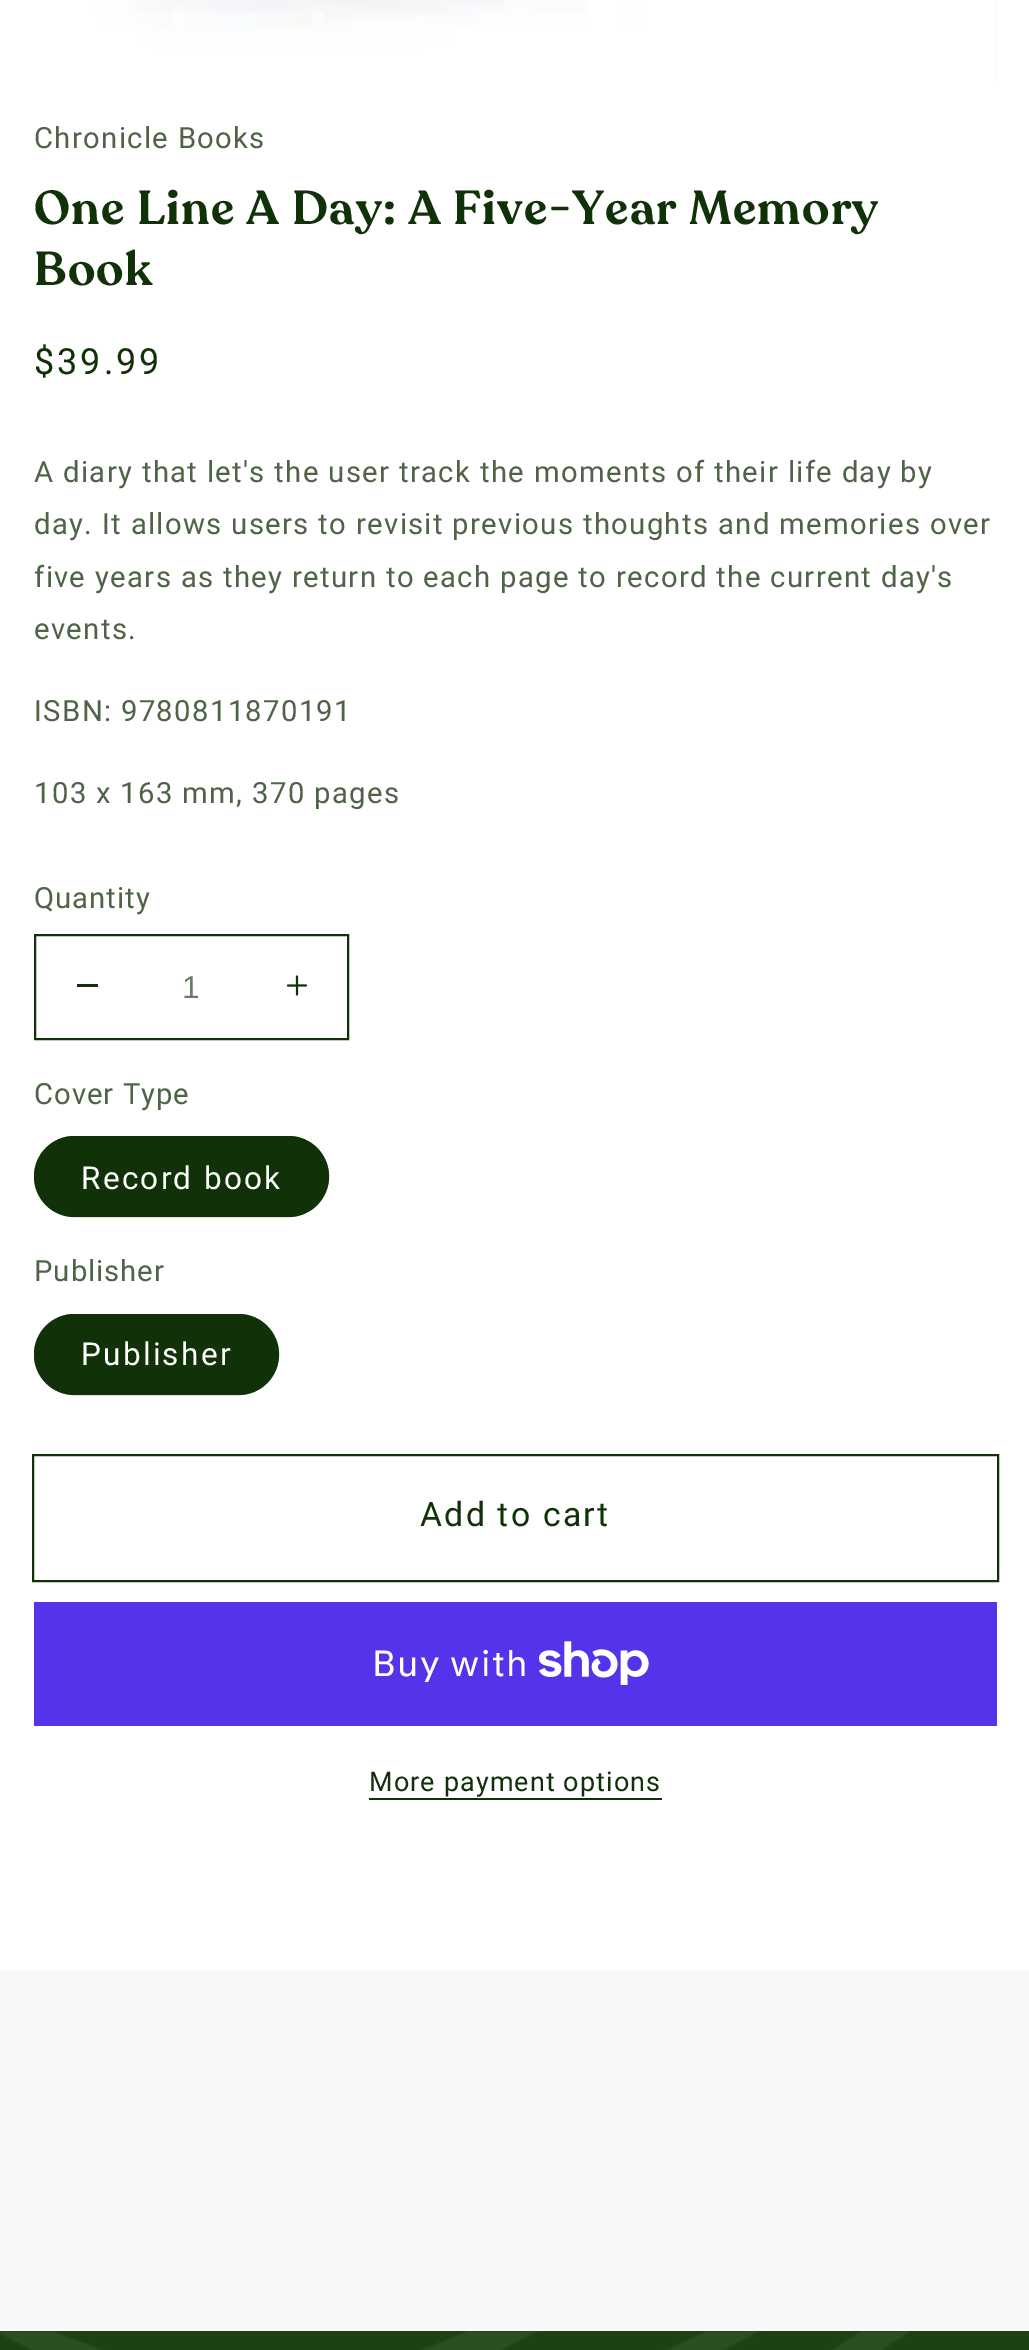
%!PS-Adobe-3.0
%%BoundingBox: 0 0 1029 2350
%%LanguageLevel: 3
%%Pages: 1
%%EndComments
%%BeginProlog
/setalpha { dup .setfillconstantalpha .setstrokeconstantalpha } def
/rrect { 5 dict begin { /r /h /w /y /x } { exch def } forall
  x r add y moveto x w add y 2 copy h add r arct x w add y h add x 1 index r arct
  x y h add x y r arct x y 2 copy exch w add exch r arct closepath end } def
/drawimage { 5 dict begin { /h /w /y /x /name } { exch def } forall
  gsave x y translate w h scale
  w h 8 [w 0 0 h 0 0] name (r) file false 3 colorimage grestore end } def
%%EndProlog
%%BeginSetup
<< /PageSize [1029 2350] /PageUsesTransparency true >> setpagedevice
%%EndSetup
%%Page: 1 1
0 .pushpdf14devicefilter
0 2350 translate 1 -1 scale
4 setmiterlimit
1 setgray
0 0 1029 2350 rectfill
0.906 0.922 0.902 setrgbcolor
996 0 1 81 rectfill
(images/1.raw) 34 0 963 81 drawimage
0.067 0.196 0.031 setrgbcolor
2 setlinewidth
35 935 313 104 rectstroke
77 984 21 3 rectfill
(images/2.raw) 286 975 22 21 drawimage
34 1136 295 81 40.5 rrect fill
0.55 setalpha
35 1137 293 79 39.5 rrect stroke
1 setalpha
34 1314 245 81 40.5 rrect fill
0.55 setalpha
35 1315 243 79 39.5 rrect stroke
1 setalpha
33 1455 965 126 rectstroke
0.329 0.2 0.922 setrgbcolor
34 1602 963 124 rectfill
(images/3.raw) 539 1641 110 44 drawimage
0.067 0.196 0.031 setrgbcolor
369 1798 293 2 rectfill
0.973 setgray
0 1971 1029 360 rectfill
0.11 0.255 0.071 setrgbcolor
0 2331 1029 19 rectfill
(images/4.raw) 0 2331 910 19 drawimage
/Roboto-Regular [29.25 0 0 -29.25 0 0] selectfont
0.302 0.396 0.275 setrgbcolor
34 148 moveto 1.35 0 (Chronicle Books) ashow
/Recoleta-SemiBold [47.25 0 0 -47.25 0 0] selectfont
0.067 0.196 0.031 setrgbcolor
34 224 moveto 1.35 0 (One Line A Day: A Five-Year Memory) ashow
34 285 moveto 1.35 0 (Book) ashow
/Roboto-Regular [36 0 0 -36 0 0] selectfont
34 374 moveto 3 0 ($39.99) ashow
/Roboto-Regular [29.25 0 0 -29.25 0 0] selectfont
0.302 0.396 0.275 setrgbcolor
34 482 moveto 1.35 0 (A diary that let's the user track the moments of their life day by) ashow
34 534 moveto 1.35 0 (day. It allows users to revisit previous thoughts and memories over) ashow
34 587 moveto 1.35 0 (five years as they return to each page to record the current day's) ashow
34 639 moveto 1.35 0 (events.) ashow
34 721 moveto 1.35 0 (ISBN: 9780811870191) ashow
34 803 moveto 1.35 0 (103 x 163 mm, 370 pages) ashow
34 908 moveto 1 0 (Quantity) ashow
/LiberationSans-Regular [31.5 0 0 -31.5 0 0] selectfont
0.408 0.49 0.384 setrgbcolor
182 998 moveto (1) show
/Roboto-Regular [29.25 0 0 -29.25 0 0] selectfont
0.302 0.396 0.275 setrgbcolor
34 1104 moveto 1 0 (Cover Type) ashow
/Roboto-Regular [31.5 0 0 -31.5 0 0] selectfont
1 setgray
81 1189 moveto 2.25 0 (Record book) ashow
/Roboto-Regular [29.25 0 0 -29.25 0 0] selectfont
0.302 0.396 0.275 setrgbcolor
34 1281 moveto 1 0 (Publisher) ashow
/Roboto-Regular [31.5 0 0 -31.5 0 0] selectfont
1 setgray
81 1365 moveto 2.25 0 (Publisher) ashow
/Roboto-Regular [33.75 0 0 -33.75 0 0] selectfont
0.067 0.196 0.031 setrgbcolor
420 1526 moveto 2.25 0 (Add to cart) ashow
/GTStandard-Regular [36 0 0 -36 0 0] selectfont
1 setgray
372 1676 moveto 1.35 0 (Buy with) ashow
/Roboto-Regular [27 0 0 -27 0 0] selectfont
0.067 0.196 0.031 setrgbcolor
369 1791 moveto 1.1 0 (More payment options) ashow
.poppdf14devicefilter showpage
%%EOF
